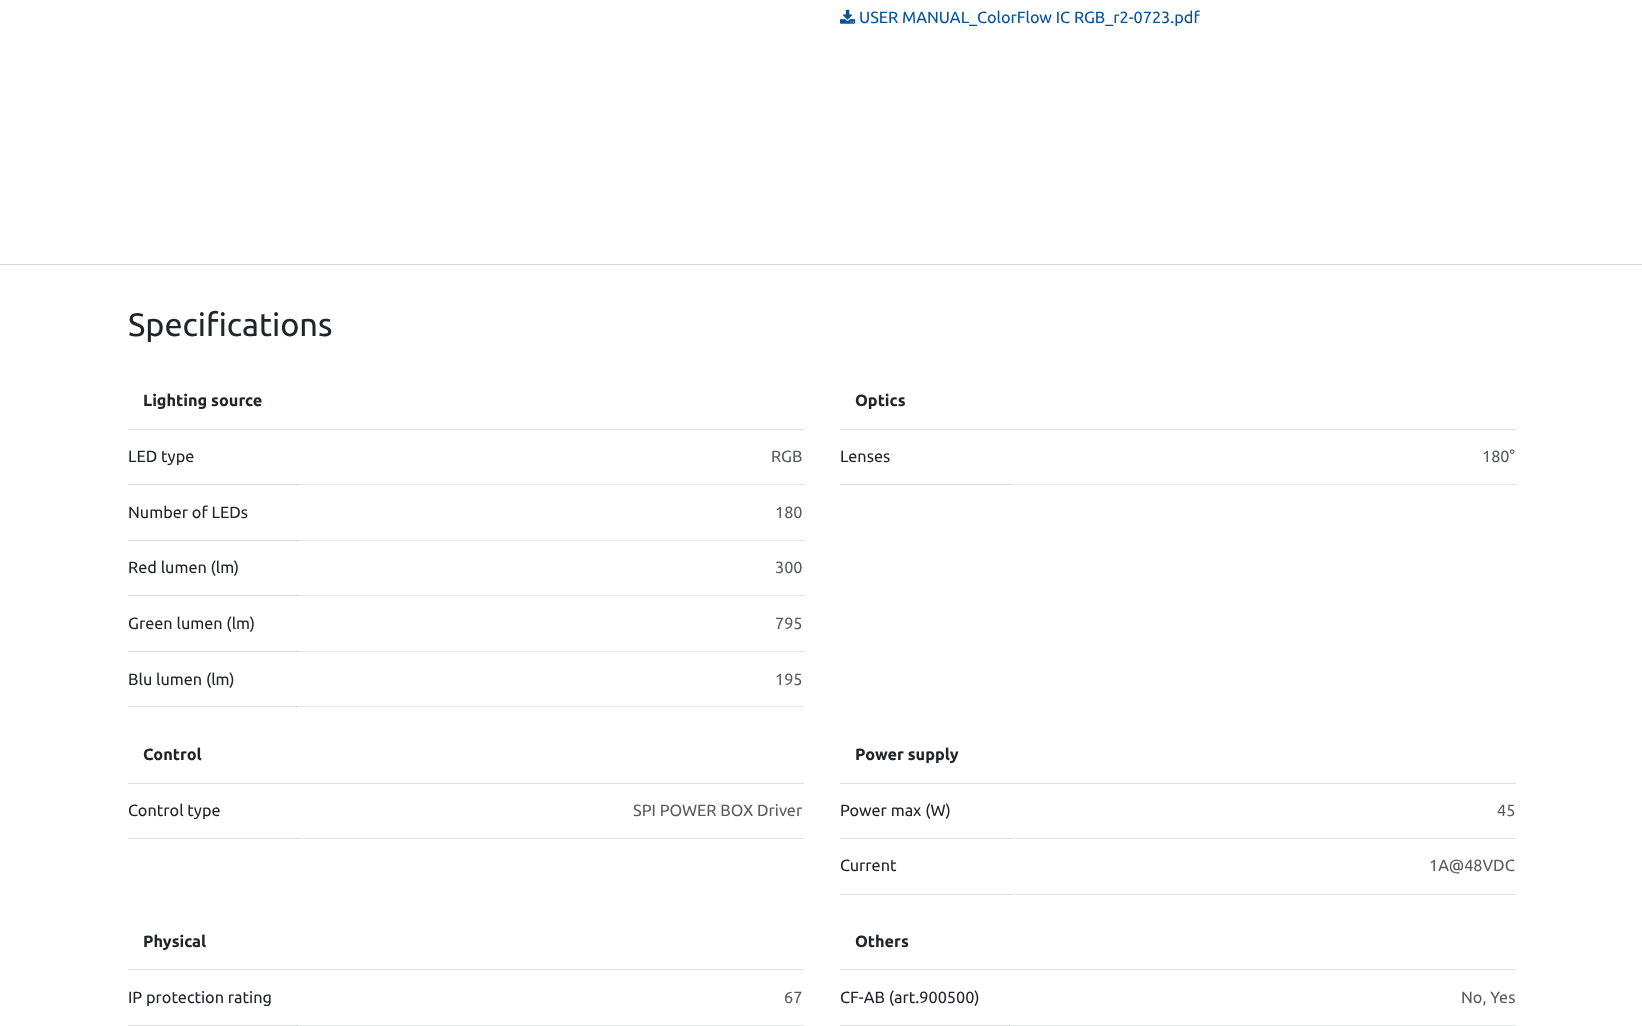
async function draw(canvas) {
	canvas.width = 1642;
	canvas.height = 1026;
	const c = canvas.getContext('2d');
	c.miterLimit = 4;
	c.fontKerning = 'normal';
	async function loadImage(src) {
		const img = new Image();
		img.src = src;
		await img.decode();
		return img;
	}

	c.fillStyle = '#fff';
	c.fillRect(0, 0, 1642, 1026);
	for (const [x, y, w, h, color] of [
		[840, 1025, 170, 1, '#dededf'],
		[128, 1025, 170, 1, '#dededf'],
		[840, 838, 170, 1, '#dededf'],
		[840, 894, 170, 1, '#dededf'],
		[128, 838, 170, 1, '#dededf'],
		[840, 484, 170, 1, '#dededf'],
		[128, 484, 170, 1, '#dededf'],
		[128, 540, 170, 1, '#dededf'],
		[128, 595, 170, 1, '#dededf'],
		[128, 651, 170, 1, '#dededf'],
		[128, 706, 170, 1, '#dededf'],
	]) {
		c.fillStyle = color;
		c.fillRect(x, y, w, h);
	}
	c.drawImage(await loadImage('img1.png'), 840, 9, 16, 15);
	c.font = '16.25px Ubuntu';
	c.fillStyle = '#085294';
	c.fillText('USER MANUAL_ColorFlow IC RGB_r2-0723.pdf', 859, 23);
	c.fillStyle = '#ced4da';
	c.fillRect(0, 264, 1642, 1);
	c.font = '32.5px Ubuntu';
	c.fillStyle = '#212529';
	c.fillText('Specifications', 128, 336);
	c.fillStyle = '#dededf';
	c.fillRect(128, 429, 676, 1);
	c.font = 'bold 16.25px Ubuntu';
	c.fillStyle = '#212529';
	c.fillText('Lighting source', 143, 406);
	c.font = '16.25px Ubuntu';
	c.fillText('LED type', 128, 462);
	c.fillStyle = '#e6e7e7';
	c.fillRect(296, 484, 508, 1);
	c.fillStyle = '#c8cacb';
	c.fillRect(296, 484, 2, 1);
	c.fillStyle = '#595c5f';
	c.fillText('RGB', 771, 462);
	c.fillStyle = '#212529';
	c.fillText('Number of LEDs', 128, 518);
	c.fillStyle = '#e6e7e7';
	c.fillRect(296, 540, 508, 1);
	c.fillStyle = '#c8cacb';
	c.fillRect(296, 540, 2, 1);
	c.fillStyle = '#595c5f';
	c.fillText('180', 775, 518);
	c.fillStyle = '#212529';
	c.fillText('Red lumen (lm)', 128, 573);
	c.fillStyle = '#e6e7e7';
	c.fillRect(296, 595, 508, 1);
	c.fillStyle = '#c8cacb';
	c.fillRect(296, 595, 2, 1);
	c.fillStyle = '#595c5f';
	c.fillText('300', 775, 573);
	c.fillStyle = '#212529';
	c.fillText('Green lumen (lm)', 128, 629);
	c.fillStyle = '#e6e7e7';
	c.fillRect(296, 651, 508, 1);
	c.fillStyle = '#c8cacb';
	c.fillRect(296, 651, 2, 1);
	c.fillStyle = '#595c5f';
	c.fillText('795', 775, 629);
	c.fillStyle = '#212529';
	c.fillText('Blu lumen (lm)', 128, 685);
	c.fillStyle = '#e6e7e7';
	c.fillRect(296, 706, 508, 1);
	c.fillStyle = '#c8cacb';
	c.fillRect(296, 706, 2, 1);
	c.fillStyle = '#595c5f';
	c.fillText('195', 775, 685);
	c.fillStyle = '#dededf';
	c.fillRect(840, 429, 676, 1);
	c.font = 'bold 16.25px Ubuntu';
	c.fillStyle = '#212529';
	c.fillText('Optics', 855, 406);
	c.font = '16.25px Ubuntu';
	c.fillText('Lenses', 840, 462);
	c.fillStyle = '#e6e7e7';
	c.fillRect(1009, 484, 507, 1);
	c.fillStyle = '#c8cacb';
	c.fillRect(1009, 484, 1, 1);
	c.fillStyle = '#595c5f';
	c.fillText('180°', 1482, 462);
	c.fillStyle = '#dededf';
	c.fillRect(128, 783, 676, 1);
	c.font = 'bold 16.25px Ubuntu';
	c.fillStyle = '#212529';
	c.fillText('Control', 143, 760);
	c.font = '16.25px Ubuntu';
	c.fillText('Control type', 128, 816);
	c.fillStyle = '#e6e7e7';
	c.fillRect(296, 838, 508, 1);
	c.fillStyle = '#c8cacb';
	c.fillRect(296, 838, 2, 1);
	c.fillStyle = '#595c5f';
	c.fillText('SPI POWER BOX Driver', 633, 816);
	c.fillStyle = '#dededf';
	c.fillRect(840, 783, 676, 1);
	c.font = 'bold 16.25px Ubuntu';
	c.fillStyle = '#212529';
	c.fillText('Power supply', 855, 760);
	c.font = '16.25px Ubuntu';
	c.fillText('Power max (W)', 840, 816);
	c.fillStyle = '#e6e7e7';
	c.fillRect(1009, 838, 507, 1);
	c.fillStyle = '#c8cacb';
	c.fillRect(1009, 838, 1, 1);
	c.fillStyle = '#595c5f';
	c.fillText('45', 1497, 816);
	c.fillStyle = '#212529';
	c.fillText('Current', 840, 871);
	c.fillStyle = '#e6e7e7';
	c.fillRect(1009, 894, 507, 1);
	c.fillStyle = '#c8cacb';
	c.fillRect(1009, 894, 1, 1);
	c.fillStyle = '#595c5f';
	c.fillText('1A@48VDC', 1429, 871);
	c.fillStyle = '#dededf';
	c.fillRect(128, 969, 676, 1);
	c.font = 'bold 16.25px Ubuntu';
	c.fillStyle = '#212529';
	c.fillText('Physical', 143, 947);
	c.font = '16.25px Ubuntu';
	c.fillText('IP protection rating', 128, 1003);
	c.fillStyle = '#e6e7e7';
	c.fillRect(296, 1025, 508, 1);
	c.fillStyle = '#c8cacb';
	c.fillRect(296, 1025, 2, 1);
	c.fillStyle = '#595c5f';
	c.fillText('67', 784, 1003);
	c.fillStyle = '#dededf';
	c.fillRect(840, 969, 676, 1);
	c.font = 'bold 16.25px Ubuntu';
	c.fillStyle = '#212529';
	c.fillText('Others', 855, 947);
	c.font = '16.25px Ubuntu';
	c.fillText('CF-AB (art.900500)', 840, 1003);
	c.fillStyle = '#e6e7e7';
	c.fillRect(1009, 1025, 507, 1);
	c.fillStyle = '#c8cacb';
	c.fillRect(1009, 1025, 1, 1);
	c.fillStyle = '#595c5f';
	c.fillText('No, Yes', 1461, 1003);
}

draw(document.querySelector('canvas'));
